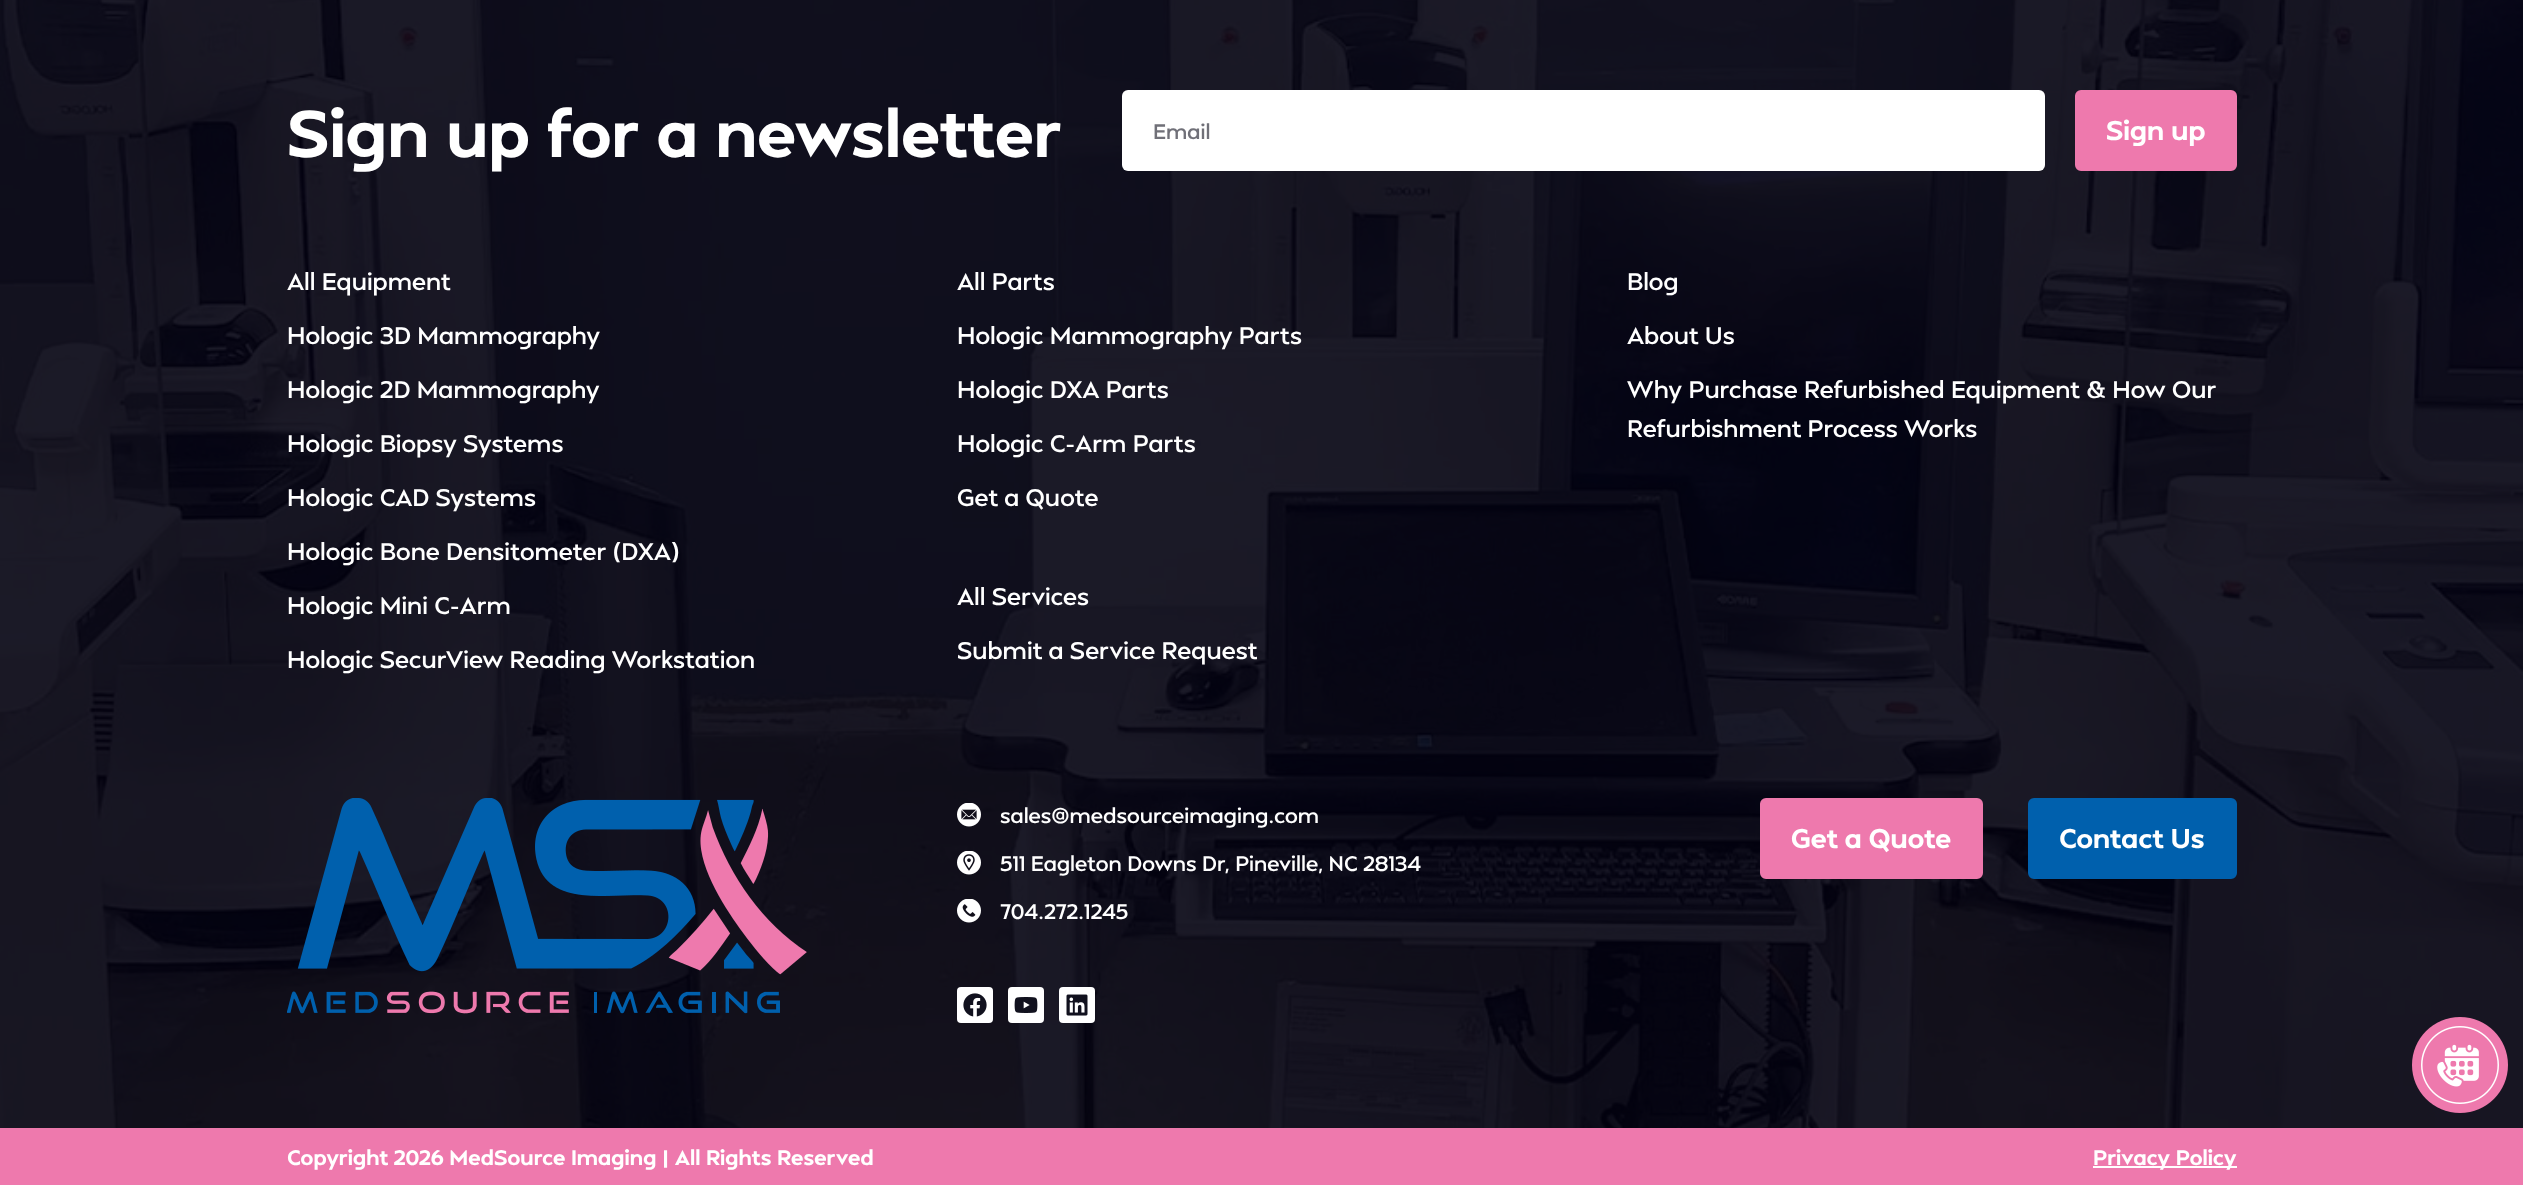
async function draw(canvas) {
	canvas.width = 2523;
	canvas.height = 1185;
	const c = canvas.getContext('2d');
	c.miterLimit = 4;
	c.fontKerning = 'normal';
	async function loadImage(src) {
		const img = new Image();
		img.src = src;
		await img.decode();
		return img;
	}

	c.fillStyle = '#fff';
	c.fillRect(0, 0, 2523, 1185);
	c.drawImage(await loadImage('img1.png'), 0, 0, 2523, 1128);
	c.font = '800 66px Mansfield';
	c.fillText('Sign up for a newsletter', 287, 157);
	c.beginPath();
	c.roundRect(1122, 90, 923, 81, 6);
	c.fill();
	c.font = '600 21px Mansfield';
	c.fillStyle = '#707078';
	c.fillText('Email', 1153, 139);
	c.fillStyle = '#ee79ad';
	c.beginPath();
	c.roundRect(2076, 91, 160, 79, 5);
	c.fill();
	c.strokeStyle = '#ee79ad';
	c.lineWidth = 2;
	c.stroke();
	c.font = '800 27px Mansfield';
	c.fillStyle = '#fff';
	c.fillText('Sign up', 2106, 140);
	c.font = '600 24px Mansfield';
	for (const [text, x, y] of [
		['All Equipment', 287, 290],
		['Hologic 3D Mammography', 287, 344],
		['Hologic 2D Mammography', 287, 398],
		['Hologic Biopsy Systems', 287, 452],
		['Hologic CAD Systems', 287, 506],
		['Hologic Bone Densitometer (DXA)', 287, 560],
		['Hologic Mini C-Arm', 287, 614],
		['Hologic SecurView Reading Workstation', 287, 668],
		['All Parts', 957, 290],
		['Hologic Mammography Parts', 957, 344],
		['Hologic DXA Parts', 957, 398],
		['Hologic C-Arm Parts', 957, 452],
		['Get a Quote', 957, 506],
		['All Services', 957, 605],
		['Submit a Service Request', 957, 659],
		['Blog', 1627, 290],
		['About Us', 1627, 344],
		['Why Purchase Refurbished Equipment & How Our', 1627, 398],
		['Refurbishment Process Works', 1627, 437],
	]) {
		c.fillText(text, x, y);
	}
	c.drawImage(await loadImage('img2.png'), 287, 798, 520, 216);
	c.drawImage(await loadImage('img3.png'), 957, 803, 24, 24);
	c.font = '600 21px Mansfield';
	c.fillText('sales@medsourceimaging.com', 1000, 823);
	c.drawImage(await loadImage('img4.png'), 957, 851, 24, 24);
	c.fillText('511 Eagleton Downs Dr, Pineville, NC 28134', 1000, 871);
	c.drawImage(await loadImage('img5.png'), 957, 899, 24, 24);
	c.fillText('704.272.1245', 1000, 919);
	c.beginPath();
	c.roundRect(957, 987, 36, 36, 4);
	c.fill();
	c.drawImage(await loadImage('img6.png'), 963, 993, 24, 24);
	c.beginPath();
	c.roundRect(1008, 987, 36, 36, 4);
	c.fill();
	c.drawImage(await loadImage('img7.png'), 1014, 997, 24, 16);
	c.beginPath();
	c.roundRect(1059, 987, 36, 36, 4);
	c.fill();
	c.drawImage(await loadImage('img8.png'), 1066, 994, 22, 22);
	c.fillStyle = '#ee79ad';
	c.beginPath();
	c.roundRect(1761, 799, 221, 79, 5);
	c.fill();
	c.stroke();
	c.font = '800 27px Mansfield';
	c.fillStyle = '#fff';
	c.fillText('Get a Quote', 1791, 848);
	c.fillStyle = '#0060ad';
	c.beginPath();
	c.roundRect(2029, 799, 207, 79, 5);
	c.fill();
	c.strokeStyle = '#0060ad';
	c.stroke();
	c.fillStyle = '#fff';
	c.fillText('Contact Us', 2059, 848);
	c.drawImage(await loadImage('img9.png'), 2412, 1017, 96, 96);
	c.fillStyle = '#ee79ad';
	c.fillRect(0, 1128, 2523, 57);
	c.font = '800 21px Mansfield';
	c.fillStyle = '#fff';
	c.fillText('Copyright 2026 MedSource Imaging | All Rights Reserved', 287, 1165);
	c.fillRect(2093, 1166, 144, 2);
	c.fillText('Privacy Policy', 2093, 1165);
}

draw(document.querySelector('canvas'));
